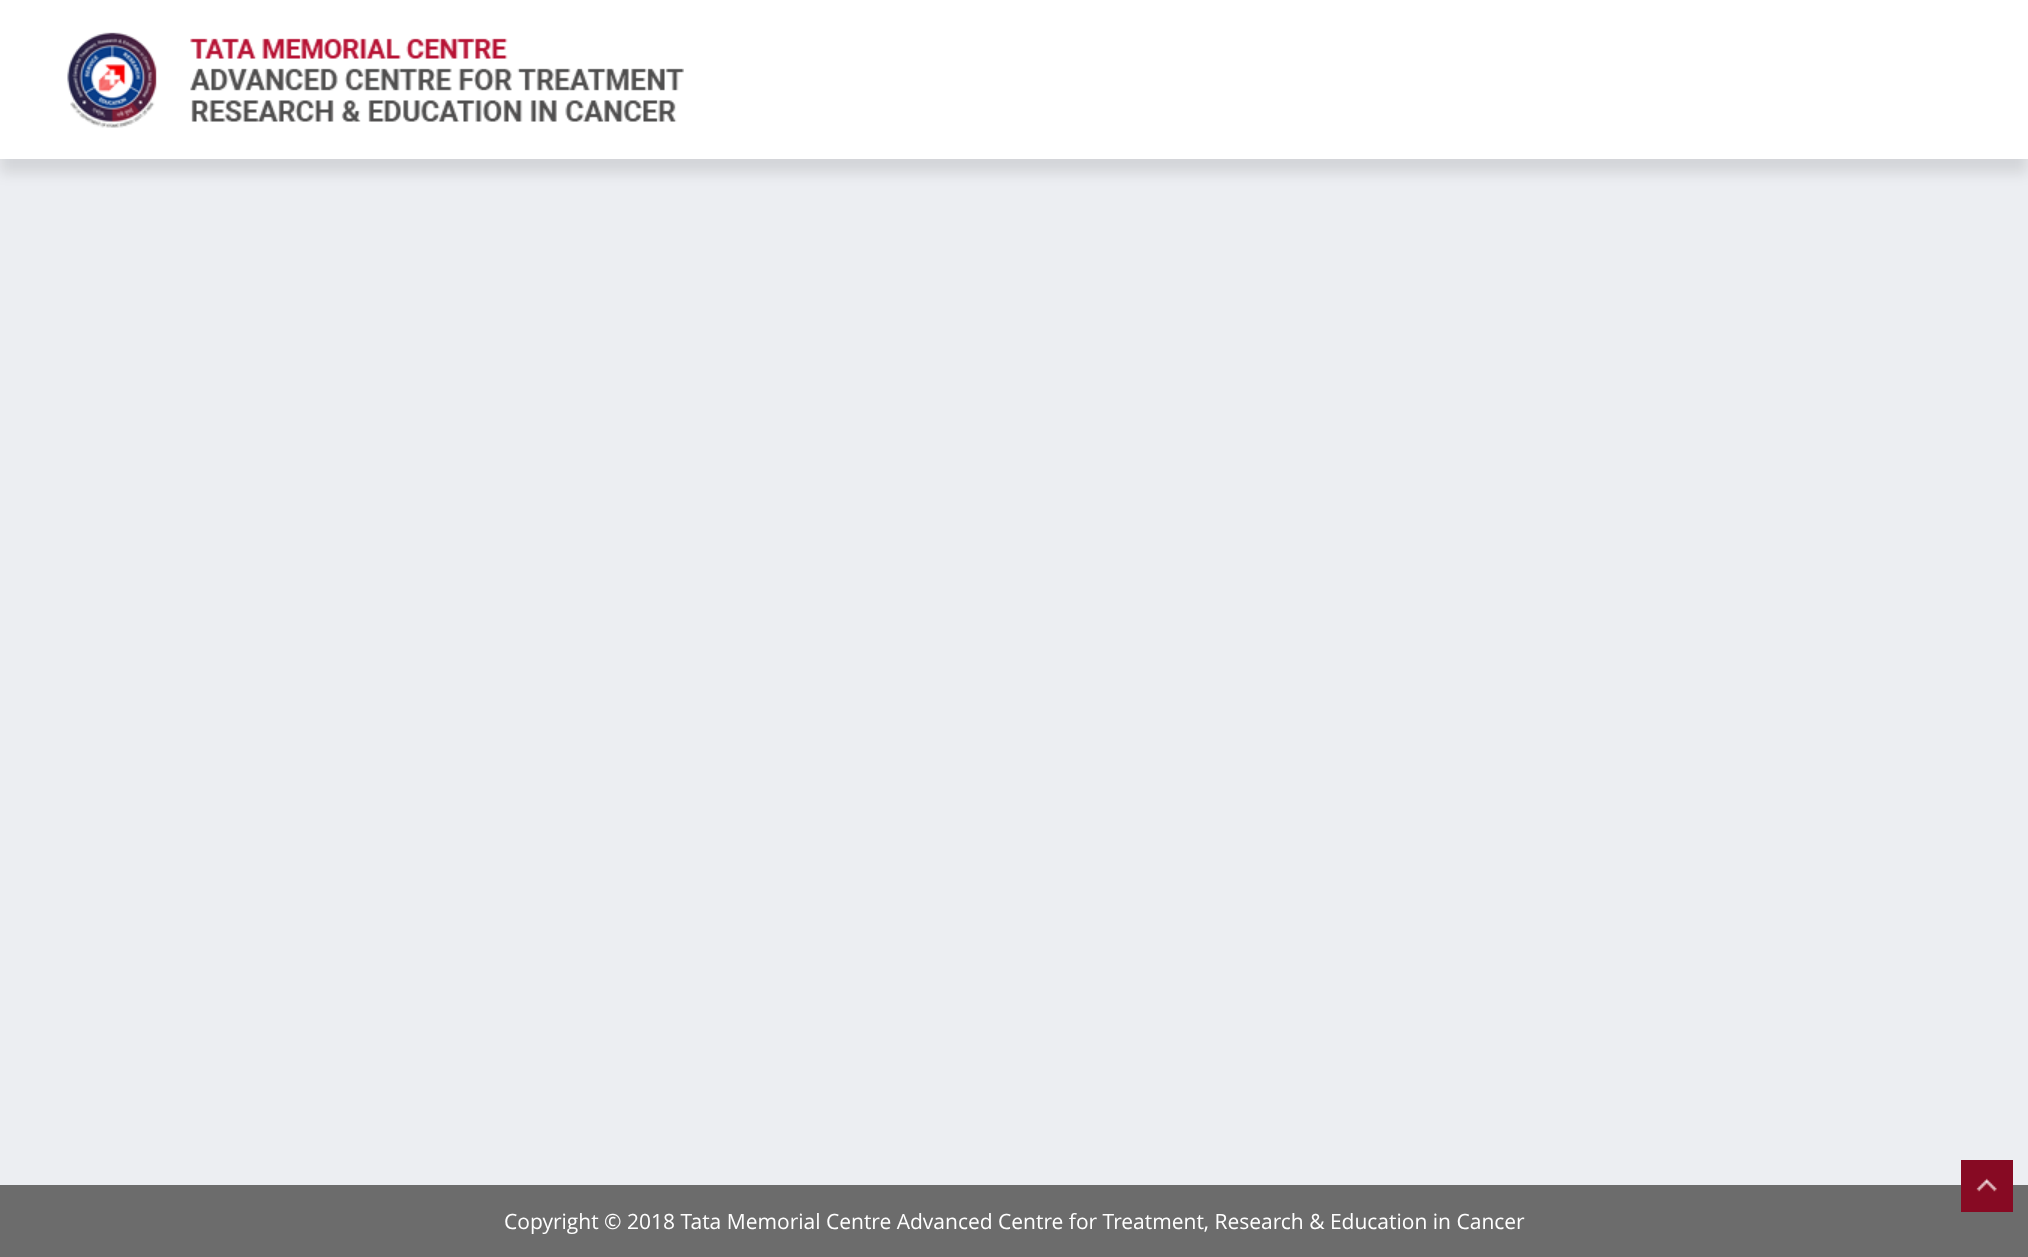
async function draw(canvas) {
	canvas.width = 2028;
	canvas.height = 1257;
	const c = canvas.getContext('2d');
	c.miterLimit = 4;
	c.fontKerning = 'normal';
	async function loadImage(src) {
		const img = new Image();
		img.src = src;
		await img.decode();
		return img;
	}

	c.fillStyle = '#eceef2';
	c.fillRect(0, 0, 2028, 1257);
	c.fillStyle = '#6c6c6c';
	c.fillRect(0, 1185, 2028, 72);
	c.fillStyle = '#870a23';
	c.fillRect(1961, 1160, 52, 52);
	c.drawImage(await loadImage('img1.png'), 1976, 1178, 21, 14);
	c.fillStyle = '#0000001a';
	c.filter = 'blur(7px)';
	c.beginPath();
	c.rect(0, 14, 2028, 159);
	c.fill();
	c.filter = 'none';
	c.fillStyle = '#fff';
	c.fillRect(0, 0, 2028, 159);
	c.drawImage(await loadImage('img2.png'), 67, 32, 617, 96);
	c.font = '21px Open Sans';
	c.fillText('Copyright © 2018 Tata Memorial Centre Advanced Centre for Treatment, Research & Education in Cancer', 504, 1229);
}

draw(document.querySelector('canvas'));
